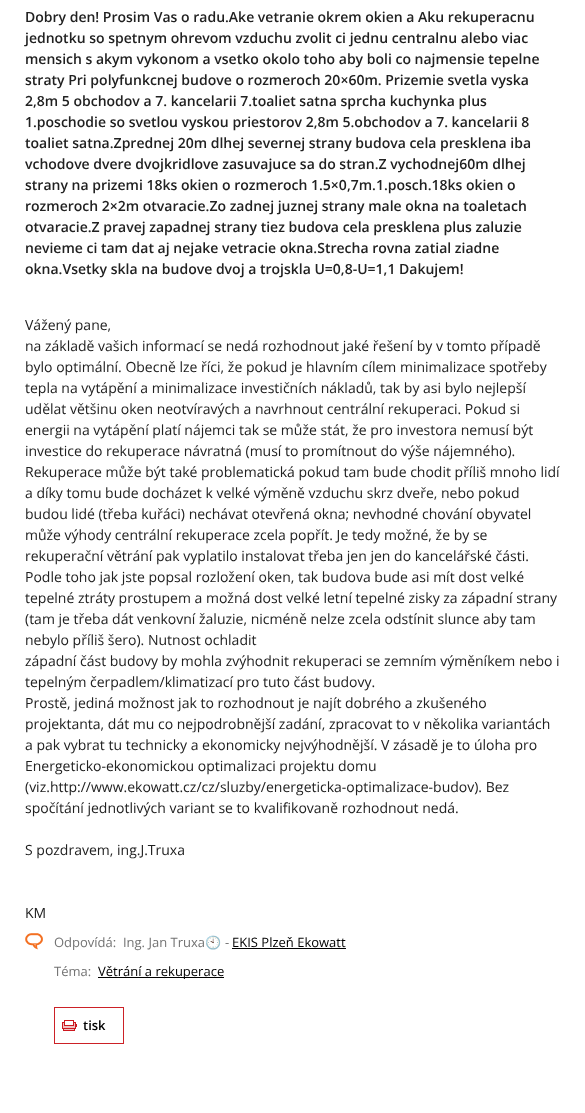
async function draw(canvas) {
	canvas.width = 585;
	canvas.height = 1113;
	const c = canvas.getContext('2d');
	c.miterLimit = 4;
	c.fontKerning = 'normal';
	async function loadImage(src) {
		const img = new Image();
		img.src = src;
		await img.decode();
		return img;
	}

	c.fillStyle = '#fff';
	c.fillRect(0, 0, 585, 1113);
	c.font = '600 14px Open Sans';
	c.fillStyle = '#212121';
	for (const [text, x, y] of [
		['Dobry den! Prosim Vas o radu.Ake vetranie okrem okien a Aku rekuperacnu', 25, 22],
		['jednotku so spetnym ohrevom vzduchu zvolit ci jednu centralnu alebo viac', 25, 43],
		['mensich s akym vykonom a vsetko okolo toho aby boli co najmensie tepelne', 25, 64],
		['straty Pri polyfunkcnej budove o rozmeroch 20×60m. Prizemie svetla vyska', 25, 85],
		['2,8m 5 obchodov a 7. kancelarii 7.toaliet satna sprcha kuchynka plus', 25, 106],
		['1.poschodie so svetlou vyskou priestorov 2,8m 5.obchodov a 7. kancelarii 8', 25, 127],
		['toaliet satna.Zprednej 20m dlhej severnej strany budova cela presklena iba', 25, 148],
		['vchodove dvere dvojkridlove zasuvajuce sa do stran.Z vychodnej60m dlhej', 25, 169],
		['strany na prizemi 18ks okien o rozmeroch 1.5×0,7m.1.posch.18ks okien o', 25, 190],
		['rozmeroch 2×2m otvaracie.Zo zadnej juznej strany male okna na toaletach', 25, 211],
		['otvaracie.Z pravej zapadnej strany tiez budova cela presklena plus zaluzie', 25, 232],
		['nevieme ci tam dat aj nejake vetracie okna.Strecha rovna zatial ziadne', 25, 253],
		['okna.Vsetky skla na budove dvoj a trojskla U=0,8-U=1,1 Dakujem!', 25, 274],
	]) {
		c.fillText(text, x, y);
	}
	c.font = '14px Open Sans';
	for (const [text, x, y] of [
		['Vážený pane,', 25, 330],
		['na základě vašich informací se nedá rozhodnout jaké řešení by v tomto případě', 25, 351],
		['bylo optimální. Obecně lze říci, že pokud je hlavním cílem minimalizace spotřeby', 25, 372],
		['tepla na vytápění a minimalizace investičních nákladů, tak by asi bylo nejlepší', 25, 393],
		['udělat většinu oken neotvíravých a navrhnout centrální rekuperaci. Pokud si', 25, 414],
		['energii na vytápění platí nájemci tak se může stát, že pro investora nemusí být', 25, 435],
		['investice do rekuperace návratná (musí to promítnout do výše nájemného).', 25, 456],
		['Rekuperace může být také problematická pokud tam bude chodit příliš mnoho lidí', 25, 477],
		['a díky tomu bude docházet k velké výměně vzduchu skrz dveře, nebo pokud', 25, 498],
		['budou lidé (třeba kuřáci) nechávat otevřená okna; nevhodné chování obyvatel', 25, 519],
		['může výhody centrální rekuperace zcela popřít. Je tedy možné, že by se', 25, 540],
		['rekuperační větrání pak vyplatilo instalovat třeba jen jen do kancelářské části.', 25, 561],
		['Podle toho jak jste popsal rozložení oken, tak budova bude asi mít dost velké', 25, 582],
		['tepelné ztráty prostupem a možná dost velké letní tepelné zisky za západní strany', 25, 603],
		['(tam je třeba dát venkovní žaluzie, nicméně nelze zcela odstínit slunce aby tam', 25, 624],
		['nebylo příliš šero). Nutnost ochladit', 25, 645],
		['západní část budovy by mohla zvýhodnit rekuperaci se zemním výměníkem nebo i', 25, 666],
		['tepelným čerpadlem/klimatizací pro tuto část budovy.', 25, 687],
		['Prostě, jediná možnost jak to rozhodnout je najít dobrého a zkušeného', 25, 708],
		['projektanta, dát mu co nejpodrobnější zadání, zpracovat to v několika variantách', 25, 729],
		['a pak vybrat tu technicky a ekonomicky nejvýhodnější. V zásadě je to úloha pro', 25, 750],
		['Energeticko-ekonomickou optimalizaci projektu domu', 25, 771],
		['(viz.http://www.ekowatt.cz/cz/sluzby/energeticka-optimalizace-budov). Bez', 25, 792],
		['spočítání jednotlivých variant se to kvalifikovaně rozhodnout nedá.', 25, 813],
		['S pozdravem, ing.J.Truxa', 25, 855],
		['KM', 25, 918],
	]) {
		c.fillText(text, x, y);
	}
	c.drawImage(await loadImage('img1.png'), 25, 933, 18, 17);
	c.font = '13px Open Sans';
	c.fillStyle = '#737373';
	c.fillText('Odpovídá:  Ing. Jan Truxa', 54, 947);
	c.font = '13px Noto Color Emoji';
	c.fillText('🕙', 205, 947);
	c.font = '13px Open Sans';
	c.fillText('-', 225, 947);
	c.fillStyle = '#000';
	c.fillText('EKIS Plzeň Ekowatt', 232, 947);
	c.fillRect(232, 948, 114, 1);
	c.fillStyle = '#737373';
	c.fillText('Téma:', 54, 976);
	c.fillStyle = '#000';
	c.fillRect(98, 977, 126, 1);
	c.fillText('Větrání a rekuperace', 98, 976);
	c.drawImage(await loadImage('img2.png'), 62, 1020, 15, 11);
	c.strokeStyle = '#cc2127';
	c.strokeRect(54.5, 1007.5, 69, 36);
	c.font = '600 13px Open Sans';
	c.fillText('tisk', 83, 1030);
}

draw(document.querySelector('canvas'));
